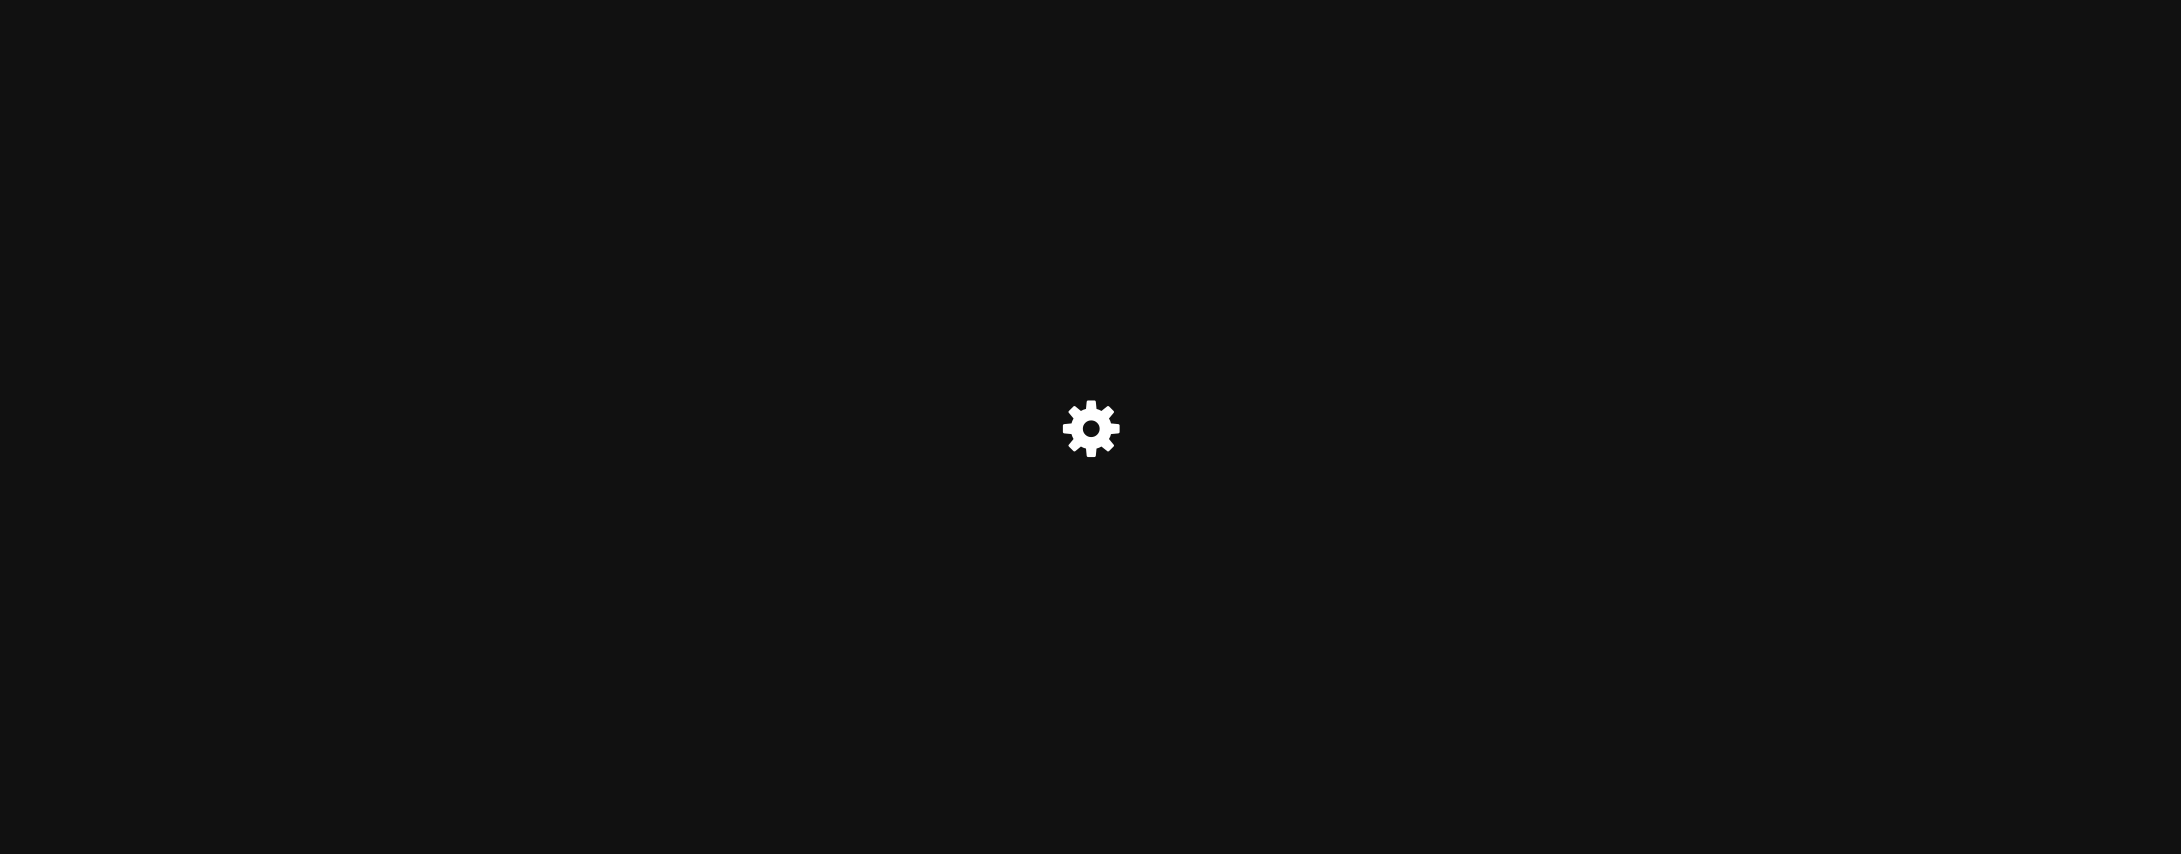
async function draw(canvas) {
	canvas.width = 2181;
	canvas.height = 854;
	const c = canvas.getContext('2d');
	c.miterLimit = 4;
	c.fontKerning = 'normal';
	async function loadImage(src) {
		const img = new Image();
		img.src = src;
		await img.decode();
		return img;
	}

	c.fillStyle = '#111';
	c.fillRect(0, 0, 2181, 854);
	c.drawImage(await loadImage('img1.png'), 1062, 400, 58, 58);
}

draw(document.querySelector('canvas'));
